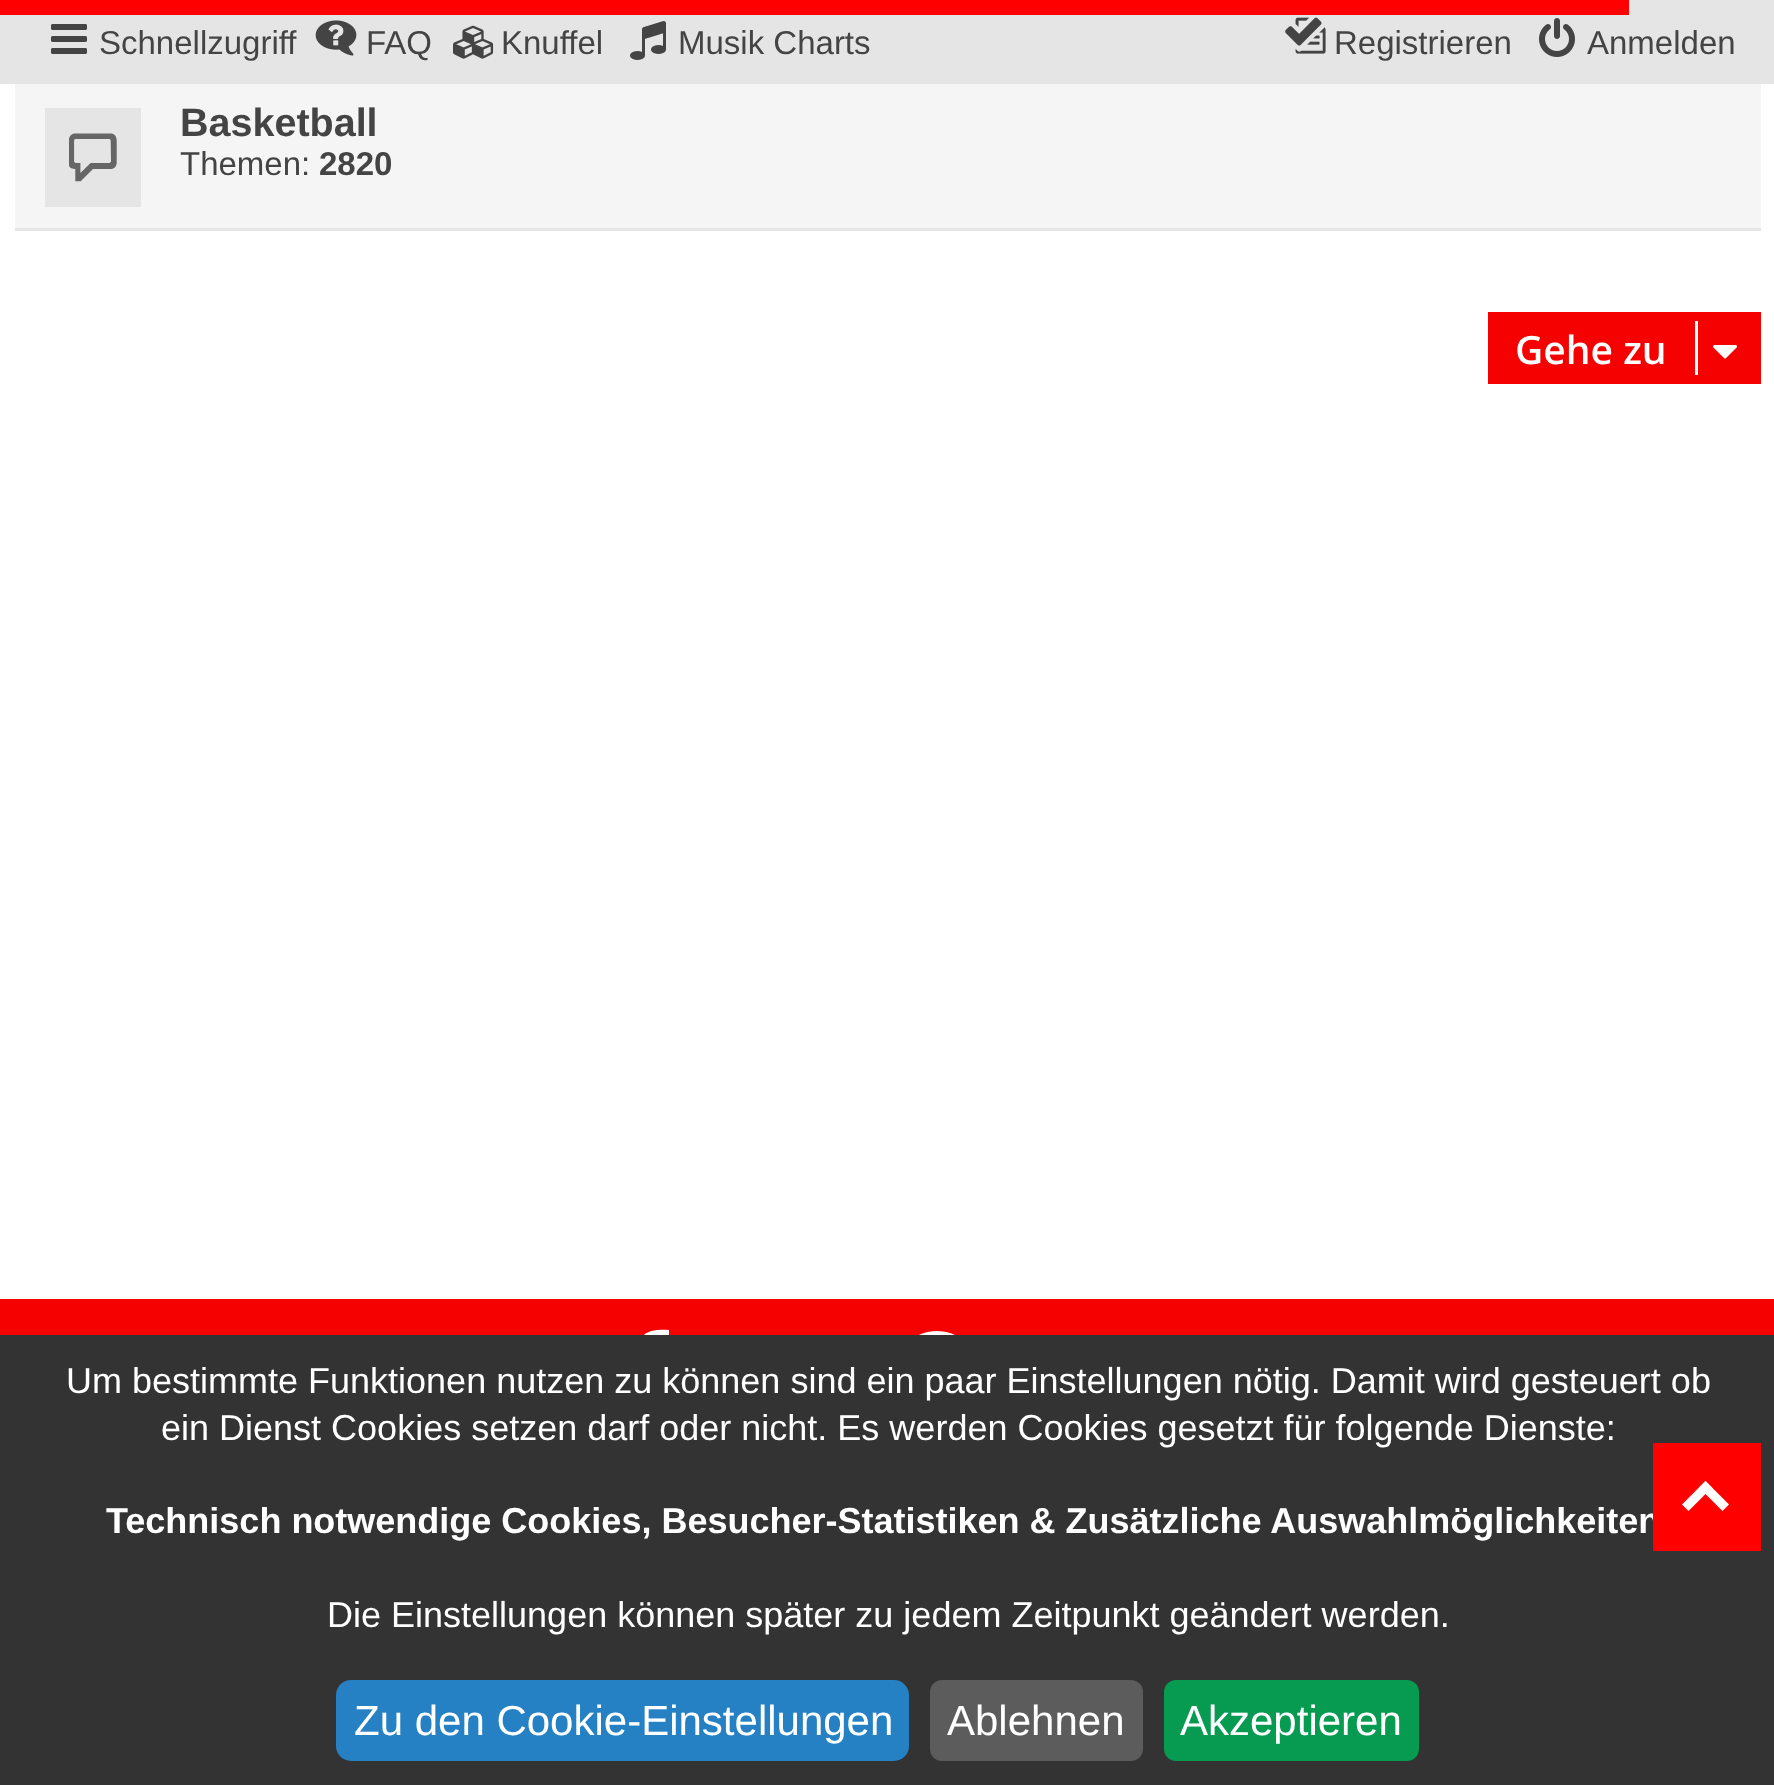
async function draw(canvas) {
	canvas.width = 1774;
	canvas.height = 1785;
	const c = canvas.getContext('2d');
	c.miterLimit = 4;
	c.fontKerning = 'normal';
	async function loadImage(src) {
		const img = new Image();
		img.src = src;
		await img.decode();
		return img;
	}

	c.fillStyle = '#fff';
	c.fillRect(0, 0, 1774, 1785);
	c.fillStyle = '#e5e5e5';
	c.fillRect(0, 0, 1774, 84);
	c.fillStyle = '#f00';
	c.fillRect(0, 0, 1629, 15);
	c.drawImage(await loadImage('img1.png'), 51, 24, 36, 30);
	c.font = '33px Liberation Sans';
	c.fillStyle = '#444';
	c.fillText('Schnellzugriff', 99, 54);
	c.drawImage(await loadImage('img2.png'), 315, 20, 42, 36);
	c.fillText('FAQ', 366, 54);
	c.drawImage(await loadImage('img3.png'), 453, 25, 41, 34);
	c.fillText('Knuffel', 501, 54);
	c.drawImage(await loadImage('img4.png'), 630, 21, 36, 39);
	c.fillText('Musik Charts', 678, 54);
	c.drawImage(await loadImage('img5.png'), 1285, 17, 41, 37);
	c.fillText('Registrieren', 1334, 54);
	c.drawImage(await loadImage('img6.png'), 1539, 18, 36, 39);
	c.fillText('Anmelden', 1587, 54);
	for (const [x, y, w, h, color] of [
		[15, 84, 1746, 144, '#f5f5f5'],
		[15, 228, 1746, 3, '#e5e5e5'],
		[45, 108, 96, 99, '#e5e5e5'],
	]) {
		c.fillStyle = color;
		c.fillRect(x, y, w, h);
	}
	c.drawImage(await loadImage('img7.png'), 69, 133, 48, 49);
	c.font = 'bold 39.5px Liberation Sans';
	c.fillStyle = '#444';
	c.fillText('Basketball', 180, 136);
	c.font = '33px Liberation Sans';
	c.fillText('Themen:', 180, 175);
	c.font = 'bold 33px Liberation Sans';
	c.fillText('2820', 319, 175);
	c.fillStyle = '#f50101';
	c.fillRect(1488, 312, 273, 72);
	c.font = '600 39px Open Sans';
	c.fillStyle = '#fff';
	c.fillText('Gehe zu', 1515, 364);
	c.fillRect(1695, 321, 3, 54);
	c.drawImage(await loadImage('img8.png'), 1713, 345, 24, 14);
	c.fillStyle = '#f50101';
	c.fillRect(0, 1299, 1774, 36);
	c.fillStyle = '#fff';
	c.beginPath();
	c.moveTo(669, 1330);
	c.lineTo(669, 1344);
	c.bezierCurveTo(652, 1344, 654, 1344, 654, 1360);
	c.lineTo(669, 1360);
	c.lineTo(667, 1375);
	c.lineTo(654, 1375);
	c.lineTo(654, 1413);
	c.lineTo(639, 1413);
	c.lineTo(639, 1375);
	c.lineTo(626, 1375);
	c.lineTo(626, 1360);
	c.lineTo(639, 1360);
	c.lineTo(639, 1345);
	c.bezierCurveTo(641, 1330, 656, 1329, 669, 1330);
	c.closePath();
	c.fill();
	c.drawImage(await loadImage('img9.png'), 919, 1331, 36, 4);
	c.fillStyle = '#333';
	c.fillRect(0, 1335, 1774, 450);
	c.font = '36px Liberation Sans';
	c.fillStyle = '#fff';
	c.fillText('Um bestimmte Funktionen nutzen zu können sind ein paar Einstellungen nötig. Damit wird gesteuert ob', 66, 1393);
	c.fillText('ein Dienst Cookies setzen darf oder nicht. Es werden Cookies gesetzt für folgende Dienste:', 161, 1440);
	c.font = 'bold 36px Liberation Sans';
	c.fillText('Technisch notwendige Cookies, Besucher-Statistiken & Zusätzliche Auswahlmöglichkeiten', 106, 1533);
	c.font = '36px Liberation Sans';
	c.fillText('Die Einstellungen können später zu jedem Zeitpunkt geändert werden.', 327, 1627);
	c.fillStyle = '#2581c4';
	c.beginPath();
	c.roundRect(336, 1680, 573, 81, 15);
	c.fill();
	c.font = '42px Liberation Sans';
	c.fillStyle = '#fff';
	c.fillText('Zu den Cookie-Einstellungen', 354, 1735);
	c.fillStyle = '#5c5c5c';
	c.beginPath();
	c.roundRect(930, 1680, 213, 81, 12);
	c.fill();
	c.fillStyle = '#fff';
	c.fillText('Ablehnen', 947, 1735);
	c.fillStyle = '#079a51';
	c.beginPath();
	c.roundRect(1164, 1680, 255, 81, 12);
	c.fill();
	c.fillStyle = '#fff';
	c.fillText('Akzeptieren', 1180, 1735);
	c.fillStyle = '#f00';
	c.fillRect(1653, 1443, 108, 108);
	c.fillStyle = '#fff';
	c.beginPath();
	c.moveTo(1712, 1487.5);
	c.lineTo(1688.5, 1511);
	c.lineTo(1682, 1504.5);
	c.lineTo(1705.5, 1481);
	c.closePath();
	c.fill();
	c.beginPath();
	c.moveTo(1729, 1504.5);
	c.lineTo(1722.5, 1511);
	c.lineTo(1699, 1487.5);
	c.lineTo(1705.5, 1481);
	c.closePath();
	c.fill();
}

draw(document.querySelector('canvas'));
